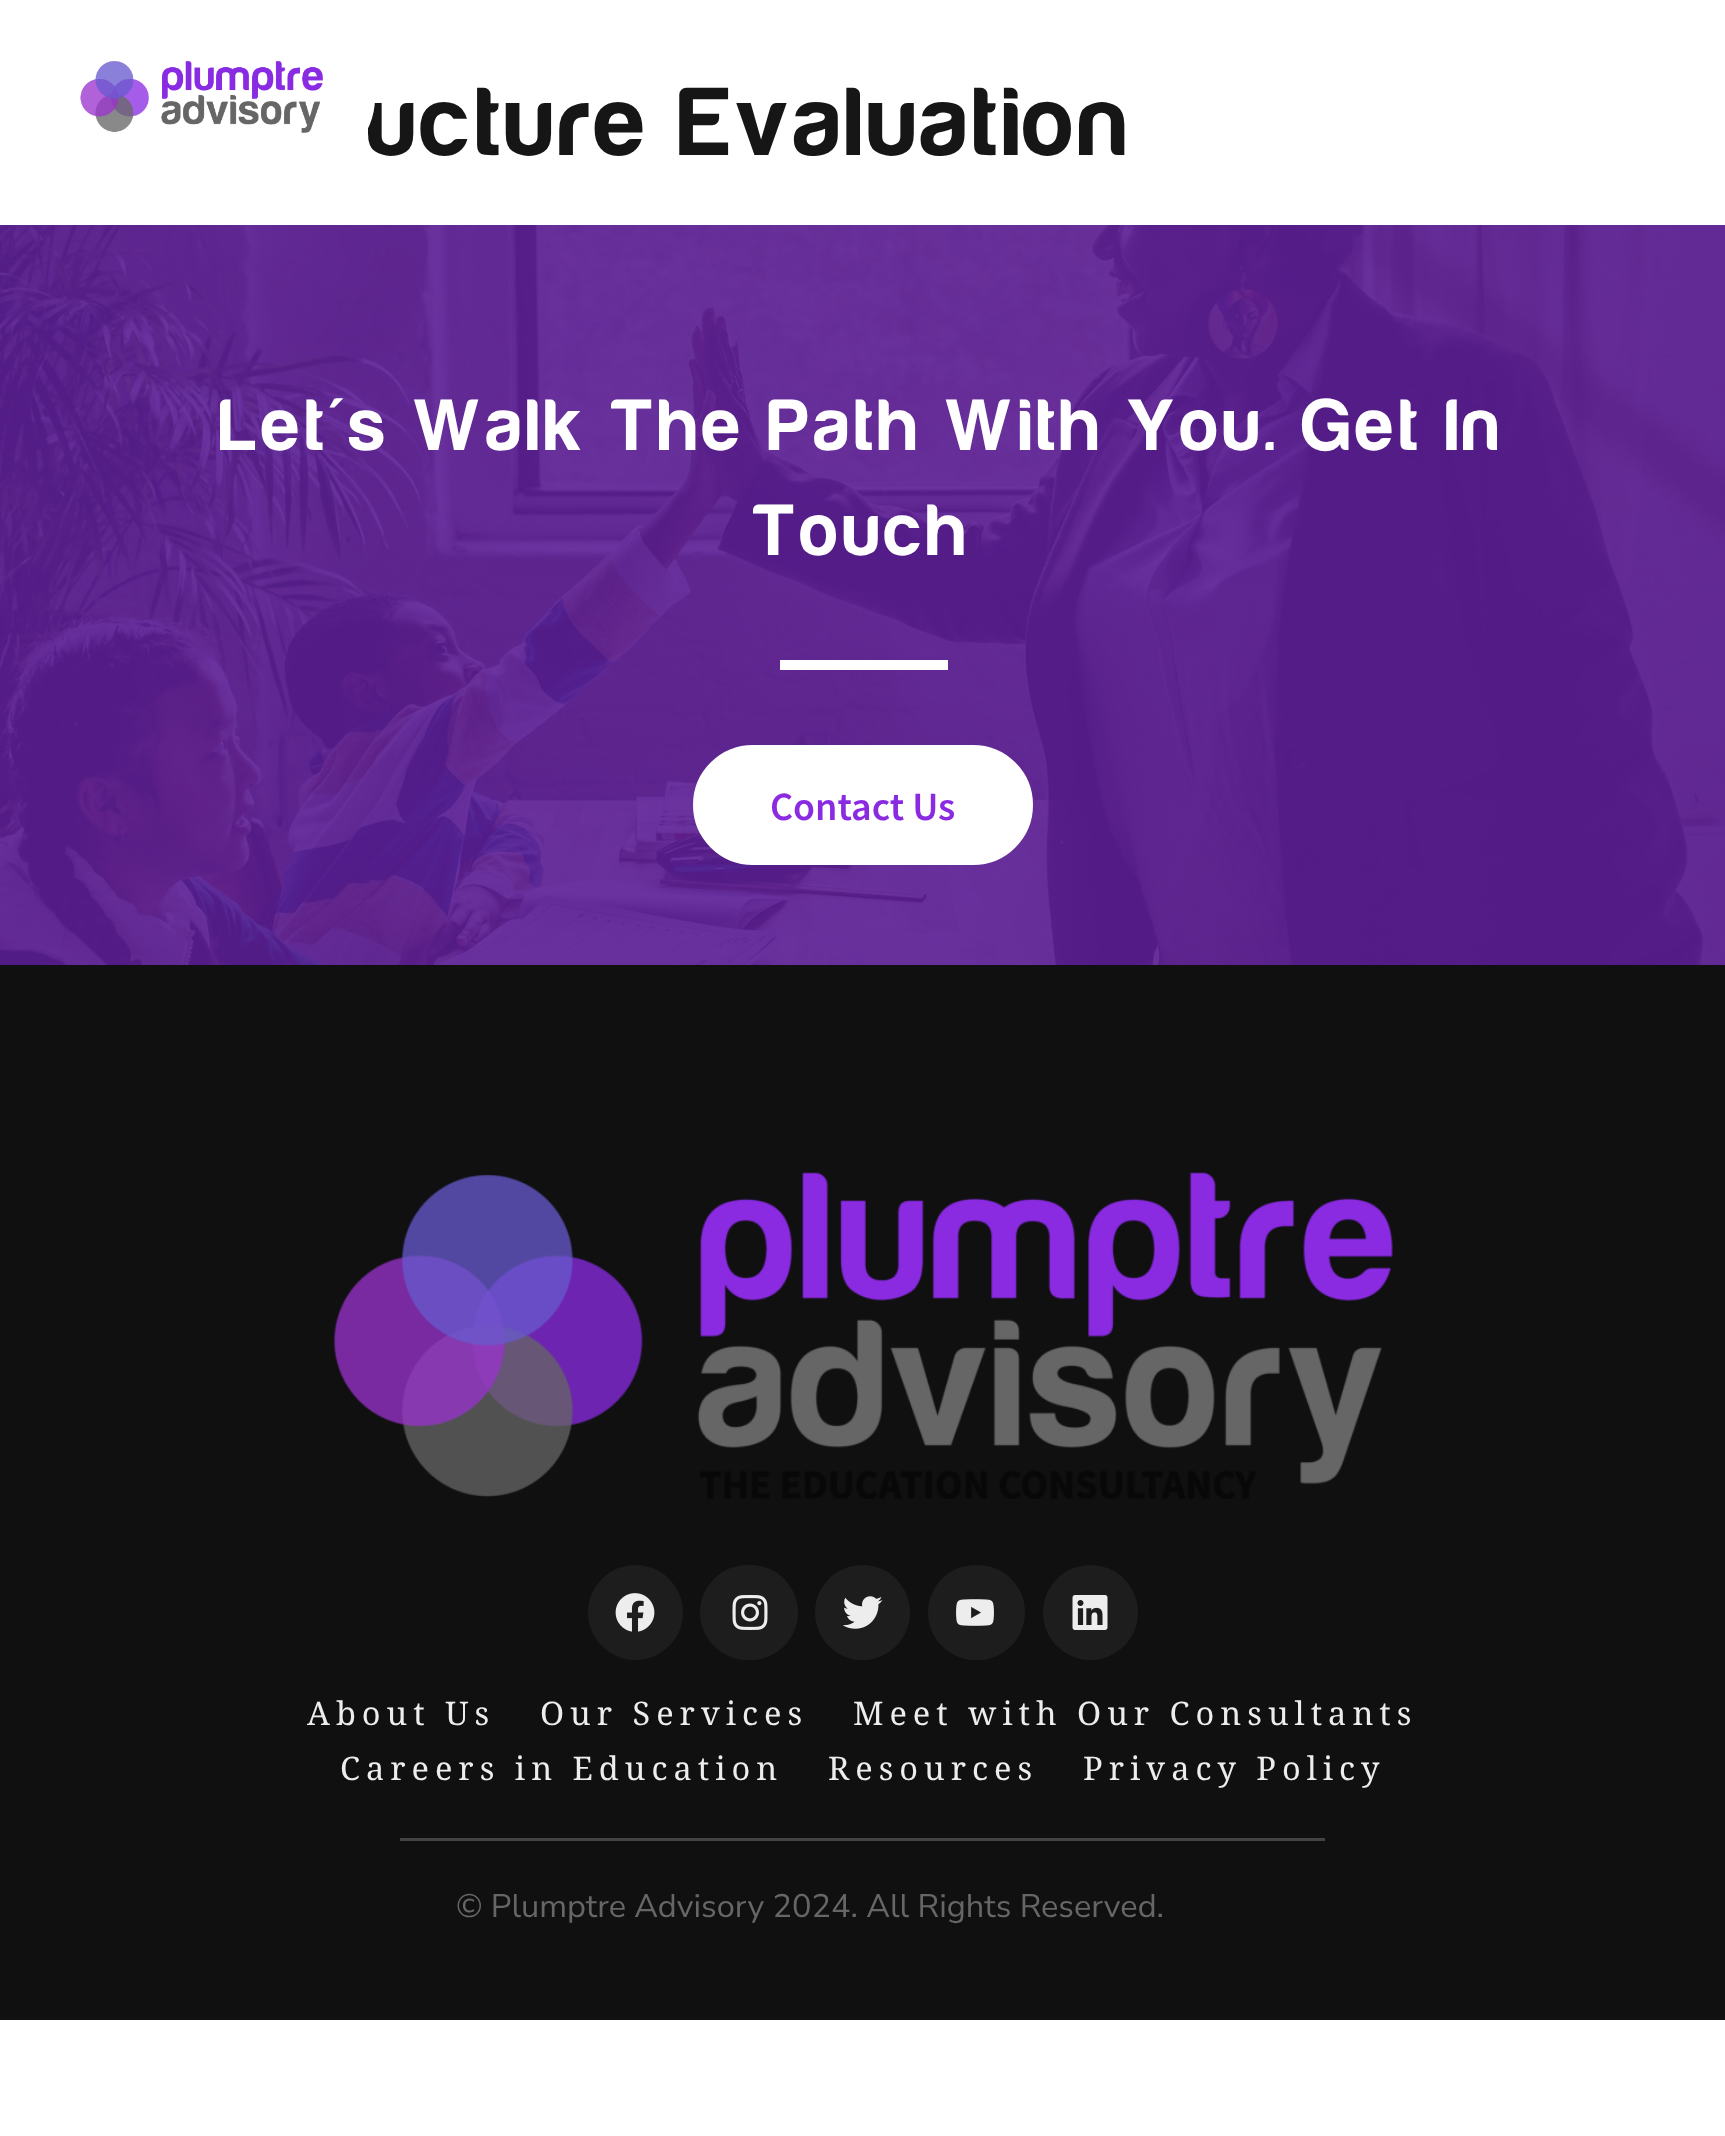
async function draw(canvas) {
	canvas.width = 1725;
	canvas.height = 2136;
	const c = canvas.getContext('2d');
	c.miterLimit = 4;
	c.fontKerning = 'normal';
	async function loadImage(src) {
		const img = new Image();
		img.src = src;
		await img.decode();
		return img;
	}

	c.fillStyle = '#fff';
	c.fillRect(0, 0, 1725, 2136);
	c.letterSpacing = '6px';
	c.font = 'bold 100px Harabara';
	c.fillStyle = '#171616';
	c.fillText('ucture Evaluation', 368, 155);
	c.fillStyle = '#fff';
	c.beginPath();
	c.roundRect(25, 28, 350, 140, 70);
	c.fill();
	c.drawImage(await loadImage('img1.png'), 80, 61, 243, 72);
	c.fillStyle = '#5c1e95';
	c.fillRect(0, 225, 1725, 740);
	c.drawImage(await loadImage('img2.png'), 0, 225, 1725, 740);
	c.font = 'bold 75px Harabara';
	c.fillStyle = '#fff';
	c.fillText('Let\'s Walk The Path With You. Get In', 220, 450);
	c.fillText('Touch', 753, 555);
	c.fillRect(780, 660, 168, 10);
	c.beginPath();
	c.roundRect(694.5, 746.5, 337, 117, 58.5);
	c.fill();
	c.strokeStyle = '#fff';
	c.lineWidth = 3;
	c.stroke();
	c.letterSpacing = '0px';
	c.font = '600 40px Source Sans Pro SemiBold';
	c.fillStyle = '#8a2be2';
	c.fillText('Contact Us', 770, 820);
	c.fillStyle = '#101011';
	c.fillRect(0, 965, 1725, 1055);
	c.drawImage(await loadImage('img3.png'), 333, 1172, 1060, 327);
	c.fillStyle = '#1d1d1d';
	c.beginPath();
	c.arc(635.5, 1612.5, 47.5, 0, 2 * Math.PI);
	c.fill();
	c.drawImage(await loadImage('img4.png'), 615, 1593, 40, 39);
	c.beginPath();
	c.roundRect(700, 1565, 98, 95, 47.5);
	c.fill();
	c.drawImage(await loadImage('img5.png'), 732, 1595, 36, 35);
	c.beginPath();
	c.arc(862.5, 1612.5, 47.5, 0, 2 * Math.PI);
	c.fill();
	c.drawImage(await loadImage('img6.png'), 843, 1596, 40, 33);
	c.beginPath();
	c.roundRect(928, 1565, 97, 95, 47.5);
	c.fill();
	c.drawImage(await loadImage('img7.png'), 956, 1599, 38, 27);
	c.beginPath();
	c.arc(1090.5, 1612.5, 47.5, 0, 2 * Math.PI);
	c.fill();
	c.drawImage(await loadImage('img8.png'), 1072, 1595, 36, 35);
	c.letterSpacing = '6px';
	c.font = '32.5px Noto Serif';
	c.fillStyle = '#ededed';
	for (const [text, x, y] of [
		['About Us', 307, 1725],
		['Our Services', 540, 1725],
		['Meet with Our Consultants', 853, 1725],
		['Careers in Education', 340, 1780],
		['Resources', 828, 1780],
		['Privacy Policy', 1083, 1780],
	]) {
		c.fillText(text, x, y);
	}
	c.fillStyle = '#434343';
	c.fillRect(400, 1838, 925, 3);
	c.letterSpacing = '0px';
	c.font = '32.5px Nunito Sans';
	c.fillStyle = '#666';
	c.fillText('© Plumptre Advisory 2024. All Rights Reserved.', 456, 1917);
}

draw(document.querySelector('canvas'));
